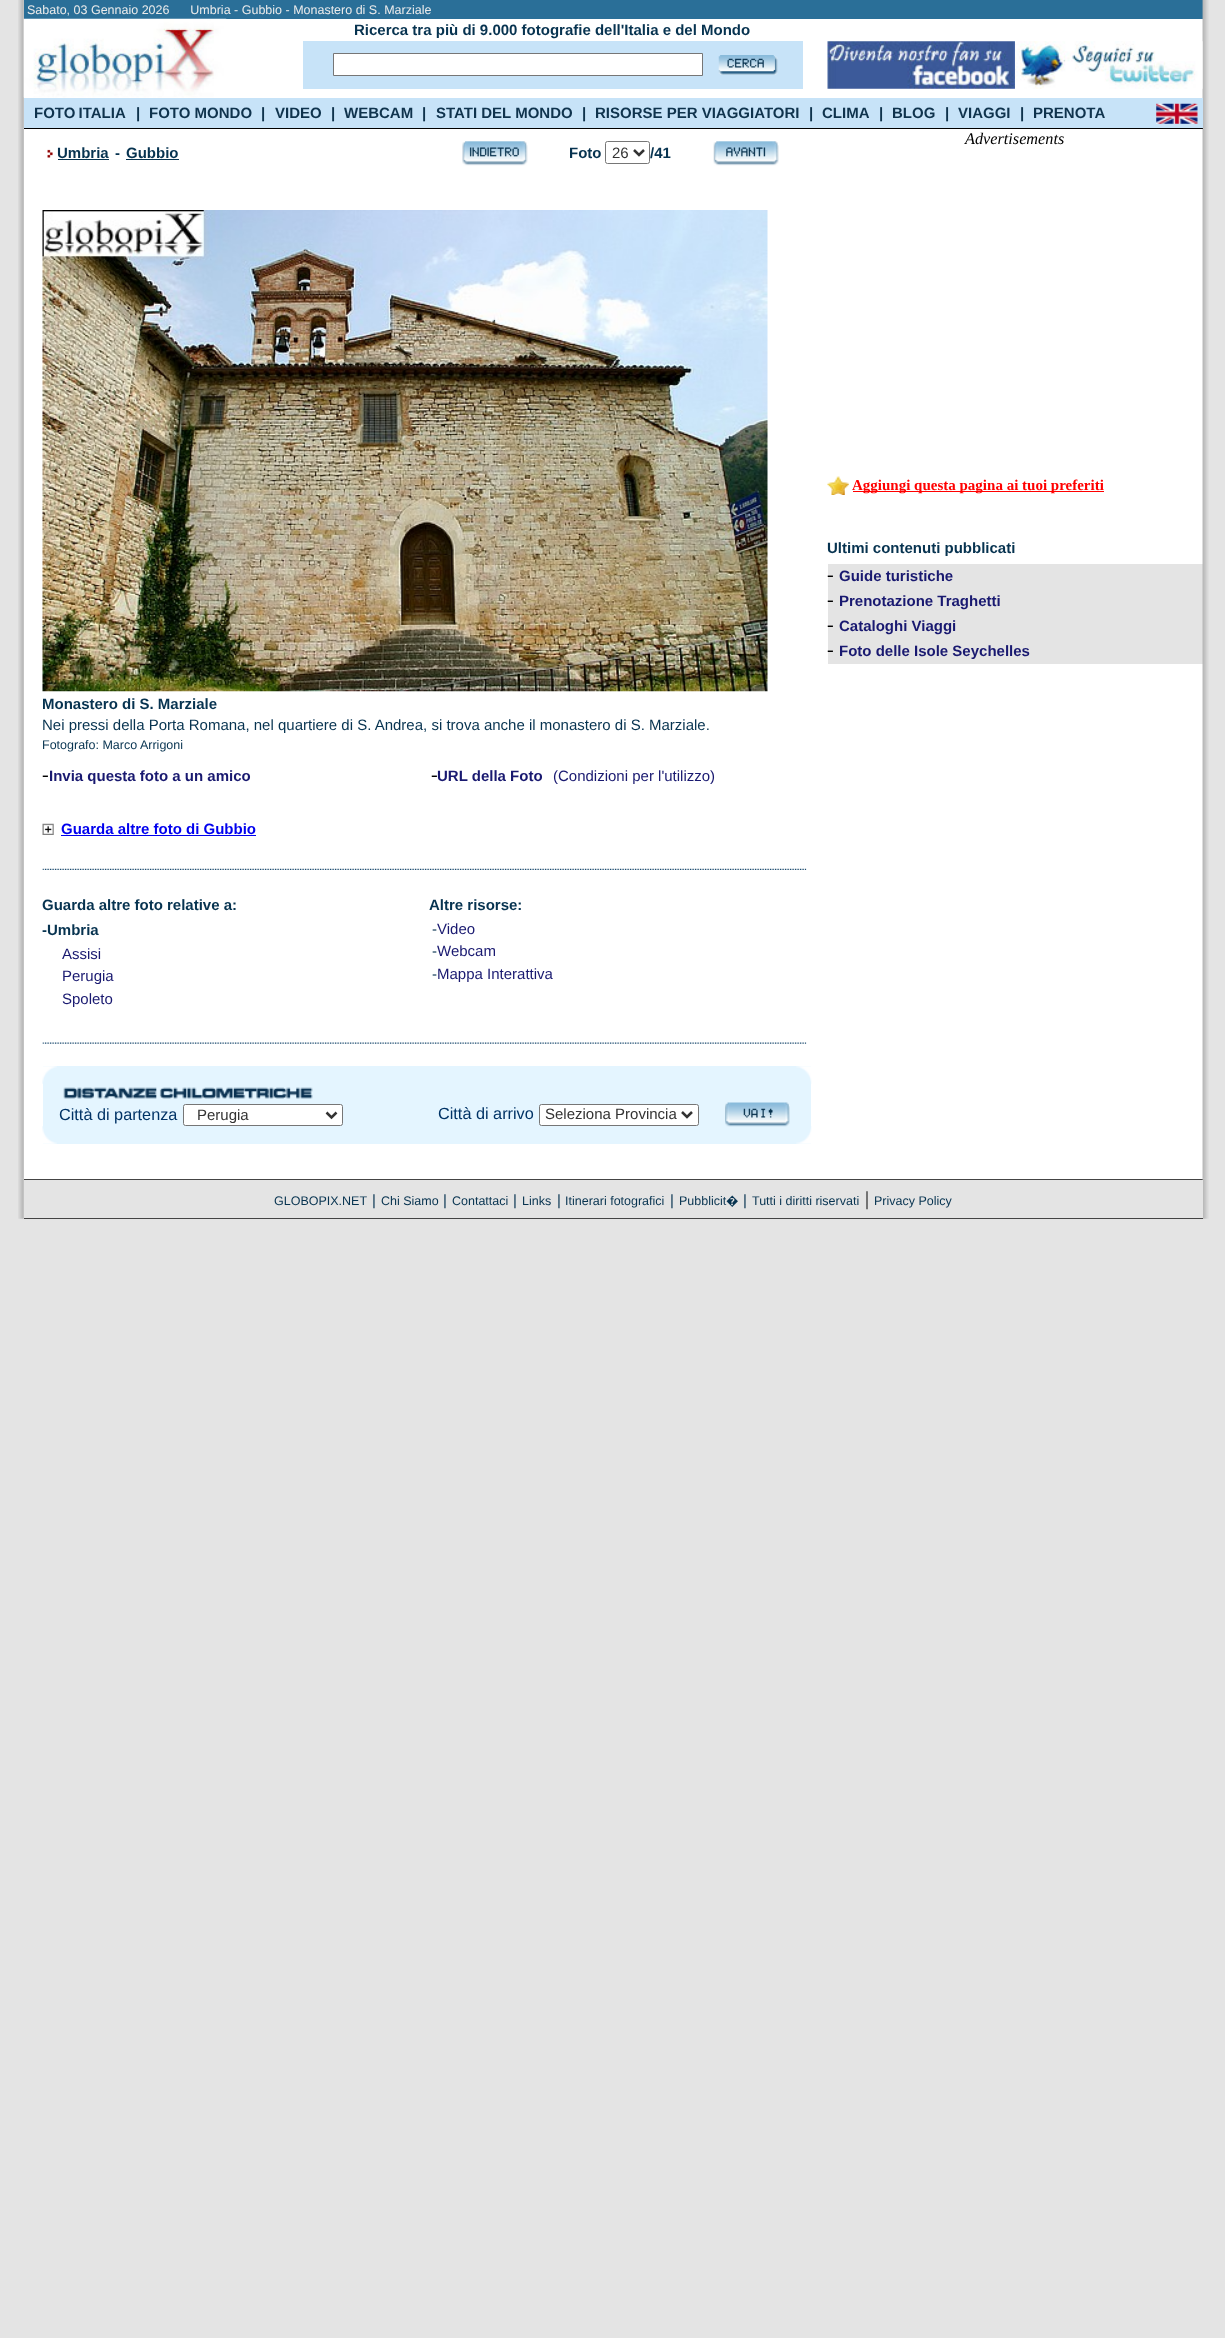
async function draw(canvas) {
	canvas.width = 1225;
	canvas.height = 2338;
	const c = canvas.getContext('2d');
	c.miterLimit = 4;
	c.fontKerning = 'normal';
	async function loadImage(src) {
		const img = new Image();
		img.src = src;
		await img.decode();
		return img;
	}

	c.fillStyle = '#e4e4e4';
	c.fillRect(0, 0, 1225, 2338);
	c.drawImage(await loadImage('img1.png'), 18, 0, 6, 129);
	c.fillStyle = '#2a6f98';
	c.fillRect(24, 0, 1179, 19);
	c.font = '12.5px Liberation Sans';
	c.fillStyle = '#ebebeb';
	c.fillText('Sabato, 03 Gennaio 2026      Umbria - Gubbio - Monastero di S. Marziale', 27, 14);
	c.fillStyle = '#fff';
	c.fillRect(24, 19, 1179, 79);
	c.drawImage(await loadImage('img2.png'), 23, 18, 204, 80);
	c.font = 'bold 15px Liberation Sans';
	c.fillStyle = '#073350';
	c.fillText('Ricerca tra più di 9.000 fotografie dell\'Italia e del Mondo', 354, 35);
	c.fillStyle = '#c7e3f8';
	c.fillRect(303, 41, 500, 48);
	c.fillStyle = '#fff';
	c.beginPath();
	c.rect(333.5, 53.5, 369, 22);
	c.fill();
	c.strokeStyle = '#767676';
	c.stroke();
	c.drawImage(await loadImage('img3.png'), 718, 55, 60, 20);
	c.drawImage(await loadImage('img4.png'), 827, 41, 188, 48);
	c.drawImage(await loadImage('img6.png'), 1202, 0, 7, 129);
	c.drawImage(await loadImage('img5.png'), 1015, 41, 188, 48);
	c.fillStyle = '#c7e3f8';
	c.fillRect(24, 98, 1179, 30);
	c.wordSpacing = '-1px';
	c.fillStyle = '#0f334d';
	c.fillText('FOTO ITALIA', 34, 118);
	c.wordSpacing = '0px';
	for (const [text, x, y] of [
		['|', 136, 118],
		['FOTO MONDO', 149, 118],
		['|', 261, 118],
		['VIDEO', 275, 118],
		['|', 331, 118],
		['WEBCAM', 344, 118],
		['|', 422, 118],
		['STATI DEL MONDO', 436, 118],
		['|', 582, 118],
		['RISORSE PER VIAGGIATORI', 595, 118],
		['|', 809, 118],
		['CLIMA', 822, 118],
		['|', 879, 118],
		['BLOG', 892, 118],
		['|', 945, 118],
		['VIAGGI', 958, 118],
		['|', 1020, 118],
		['PRENOTA', 1033, 118],
	]) {
		c.fillText(text, x, y);
	}
	c.drawImage(await loadImage('img7.png'), 1156, 103, 42, 21);
	c.fillStyle = '#000';
	c.fillRect(24, 128, 1179, 1);
	c.drawImage(await loadImage('img8.png'), 18, 128, 6, 1051);
	c.fillStyle = '#fff';
	c.fillRect(24, 129, 1179, 1050);
	c.fillStyle = '#073350';
	c.fillText('Umbria', 57, 158);
	c.drawImage(await loadImage('img9.png'), 47, 147, 11, 11);
	c.fillRect(58, 159, 51, 1);
	c.fillText('-', 115, 158);
	c.fillText('Gubbio', 126, 158);
	c.fillRect(126, 159, 53, 1);
	c.drawImage(await loadImage('img10.png'), 462, 141, 66, 25);
	c.fillText('Foto', 569, 158);
	c.beginPath();
	c.roundRect(605.5, 141.5, 44, 22, 2);
	c.stroke();
	c.beginPath();
	c.moveTo(634, 150);
	c.lineTo(639, 155);
	c.lineTo(644, 150);
	c.strokeStyle = '#333';
	c.lineWidth = 2.5;
	c.stroke();
	c.font = '15px Liberation Sans';
	c.fillStyle = '#333';
	c.fillText('26', 612, 158);
	c.font = 'bold 15px Liberation Sans';
	c.fillStyle = '#073350';
	c.fillText('/41', 650, 158);
	c.drawImage(await loadImage('img11.png'), 713, 141, 66, 25);
	c.drawImage(await loadImage('img12.png'), 42, 210, 726, 482);
	c.fillText('Monastero di S. Marziale', 42, 709);
	c.font = '15px Liberation Sans';
	c.fillText('Nei pressi della Porta Romana, nel quartiere di S. Andrea, si trova anche il monastero di S. Marziale.', 42, 730);
	c.font = '12.5px Liberation Sans';
	c.fillText('Fotografo: Marco Arrigoni', 42, 749);
	c.font = '20px Liberation Serif';
	c.fillStyle = '#000';
	c.fillText('-', 42, 781);
	c.font = 'bold 15px Liberation Sans';
	c.fillStyle = '#191970';
	c.fillText('Invia questa foto a un amico', 49, 781);
	c.font = '20px Liberation Serif';
	c.fillStyle = '#000';
	c.fillText('-', 431, 781);
	c.font = 'bold 15px Liberation Sans';
	c.fillStyle = '#191970';
	c.fillText('URL della Foto', 437, 781);
	c.font = '15px Liberation Sans';
	c.fillText('(Condizioni per l\'utilizzo)', 553, 781);
	c.drawImage(await loadImage('img13.png'), 42, 823, 12, 12);
	c.font = 'bold 15px Liberation Sans';
	c.fillStyle = '#00e';
	c.fillText('Guarda altre foto di Gubbio', 61, 834);
	c.fillRect(61, 835, 195, 1);
	c.drawImage(await loadImage('img14.png'), 42, 868, 765, 2);
	c.fillStyle = '#073350';
	for (const [text, x, y] of [
		['Guarda altre foto relative a:', 42, 910],
		['Altre risorse:', 429, 910],
		['-Umbria', 42, 935],
	]) {
		c.fillText(text, x, y);
	}
	c.font = '15px Liberation Sans';
	c.fillStyle = '#191970';
	for (const [text, x, y] of [
		['Assisi', 62, 959],
		['Perugia', 62, 981],
		['Spoleto', 62, 1004],
	]) {
		c.fillText(text, x, y);
	}
	c.fillStyle = '#073350';
	c.fillText('-', 432, 934);
	c.fillStyle = '#191970';
	c.fillText('Video', 437, 934);
	c.fillStyle = '#073350';
	c.fillText('-', 432, 956);
	c.fillStyle = '#191970';
	c.fillText('Webcam', 437, 956);
	c.fillStyle = '#073350';
	c.fillText('-', 432, 979);
	c.fillStyle = '#191970';
	c.fillText('Mappa Interattiva', 437, 979);
	c.drawImage(await loadImage('img15.png'), 42, 1042, 765, 2);
	c.fillStyle = '#e4f5ff';
	c.fillRect(43, 1066, 768, 78);
	c.drawImage(await loadImage('img16.png'), 42, 1066, 15, 18);
	c.drawImage(await loadImage('img17.png'), 796, 1066, 16, 18);
	c.drawImage(await loadImage('img18.png'), 63, 1087, 250, 12);
	c.font = '16.25px Liberation Sans';
	c.fillStyle = '#036';
	c.fillText('Città di partenza', 59, 1120);
	c.fillStyle = '#fff';
	c.beginPath();
	c.roundRect(183.5, 1104.5, 159, 21, 2);
	c.fill();
	c.strokeStyle = '#767676';
	c.lineWidth = 1;
	c.stroke();
	c.beginPath();
	c.moveTo(326.5, 1112.5);
	c.lineTo(331.5, 1117.5);
	c.lineTo(336.5, 1112.5);
	c.strokeStyle = '#333';
	c.lineWidth = 2.5;
	c.stroke();
	c.font = '15px Liberation Sans';
	c.fillStyle = '#333';
	c.fillText('Perugia', 197, 1120);
	c.font = '16.25px Liberation Sans';
	c.fillStyle = '#036';
	c.fillText('Città di arrivo', 438, 1119);
	c.fillStyle = '#fff';
	c.beginPath();
	c.roundRect(539.5, 1104.5, 159, 21, 2);
	c.fill();
	c.strokeStyle = '#767676';
	c.lineWidth = 1;
	c.stroke();
	c.beginPath();
	c.moveTo(682, 1112);
	c.lineTo(687, 1117);
	c.lineTo(692, 1112);
	c.strokeStyle = '#333';
	c.lineWidth = 2.5;
	c.stroke();
	c.font = '15px Liberation Sans';
	c.fillStyle = '#333';
	c.fillText('Seleziona Provincia', 545, 1119);
	c.drawImage(await loadImage('img19.png'), 725, 1102, 65, 25);
	c.drawImage(await loadImage('img20.png'), 42, 1126, 15, 18);
	c.drawImage(await loadImage('img21.png'), 796, 1126, 16, 18);
	c.font = 'italic 16.25px Liberation Serif';
	c.fillStyle = '#000';
	c.fillText('Advertisements', 965, 144);
	c.drawImage(await loadImage('img22.png'), 827, 476, 22, 19);
	c.fillStyle = '#f00';
	c.fillRect(853, 491, 251, 1);
	c.font = 'bold 15px Liberation Serif';
	c.fillText('Aggiungi questa pagina ai tuoi preferiti', 852, 490);
	c.font = 'bold 15px Liberation Sans';
	c.fillStyle = '#073350';
	c.fillText('Ultimi contenuti pubblicati', 827, 553);
	c.fillStyle = '#e4e4e4';
	c.fillRect(828, 564, 375, 100);
	c.font = '20px Liberation Serif';
	c.fillStyle = '#000';
	c.fillText('-', 827, 581);
	c.font = 'bold 15px Liberation Sans';
	c.fillStyle = '#191970';
	c.fillText('Guide turistiche', 839, 581);
	c.font = '20px Liberation Serif';
	c.fillStyle = '#000';
	c.fillText('-', 827, 606);
	c.font = 'bold 15px Liberation Sans';
	c.fillStyle = '#191970';
	c.fillText('Prenotazione Traghetti', 839, 606);
	c.font = '20px Liberation Serif';
	c.fillStyle = '#000';
	c.fillText('-', 827, 631);
	c.font = 'bold 15px Liberation Sans';
	c.fillStyle = '#191970';
	c.fillText('Cataloghi Viaggi', 839, 631);
	c.font = '20px Liberation Serif';
	c.fillStyle = '#000';
	c.fillText('-', 827, 656);
	c.font = 'bold 15px Liberation Sans';
	c.fillStyle = '#191970';
	c.fillText('Foto delle Isole Seychelles', 839, 656);
	c.drawImage(await loadImage('img23.png'), 1202, 128, 7, 1051);
	c.drawImage(await loadImage('img24.png'), 18, 1178, 6, 41);
	c.fillStyle = '#444';
	c.fillRect(24, 1179, 1179, 1);
	c.drawImage(await loadImage('img25.png'), 1202, 1178, 7, 41);
	c.fillStyle = '#e4e4e4';
	c.fillRect(1202, 1180, 1, 38);
	c.font = '12.5px Liberation Sans';
	c.fillStyle = '#073350';
	c.fillText('GLOBOPIX.NET', 274, 1205);
	c.font = '15px Liberation Sans';
	c.fillText('|', 372, 1205);
	c.font = '12.5px Liberation Sans';
	c.fillText('Chi Siamo', 381, 1205);
	c.font = '15px Liberation Sans';
	c.fillText('|', 443, 1205);
	c.font = '12.5px Liberation Sans';
	c.fillText('Contattaci', 452, 1205);
	c.font = '15px Liberation Sans';
	c.fillText('|', 513, 1205);
	c.font = '12.5px Liberation Sans';
	c.fillText('Links', 522, 1205);
	c.font = '15px Liberation Sans';
	c.fillText('|', 557, 1205);
	c.font = '12.5px Liberation Sans';
	c.fillText('Itinerari fotografici', 565, 1205);
	c.font = '15px Liberation Sans';
	c.fillText('|', 670, 1205);
	c.font = '12.5px Liberation Sans';
	c.fillText('Pubblicit', 679, 1205);
	c.font = '12.5px Noto Sans';
	c.fillText('�', 726, 1205);
	c.font = '15px Liberation Sans';
	c.fillText('|', 743, 1205);
	c.font = '12.5px Liberation Sans';
	c.fillText('Tutti i diritti riservati', 752, 1205);
	c.font = '20px Liberation Serif';
	c.fillStyle = '#000';
	c.fillText('|', 865, 1205);
	c.font = '12.5px Liberation Sans';
	c.fillStyle = '#073350';
	c.fillText('Privacy Policy', 874, 1205);
	c.fillStyle = '#444';
	c.fillRect(24, 1218, 1179, 1);
}

draw(document.querySelector('canvas'));
